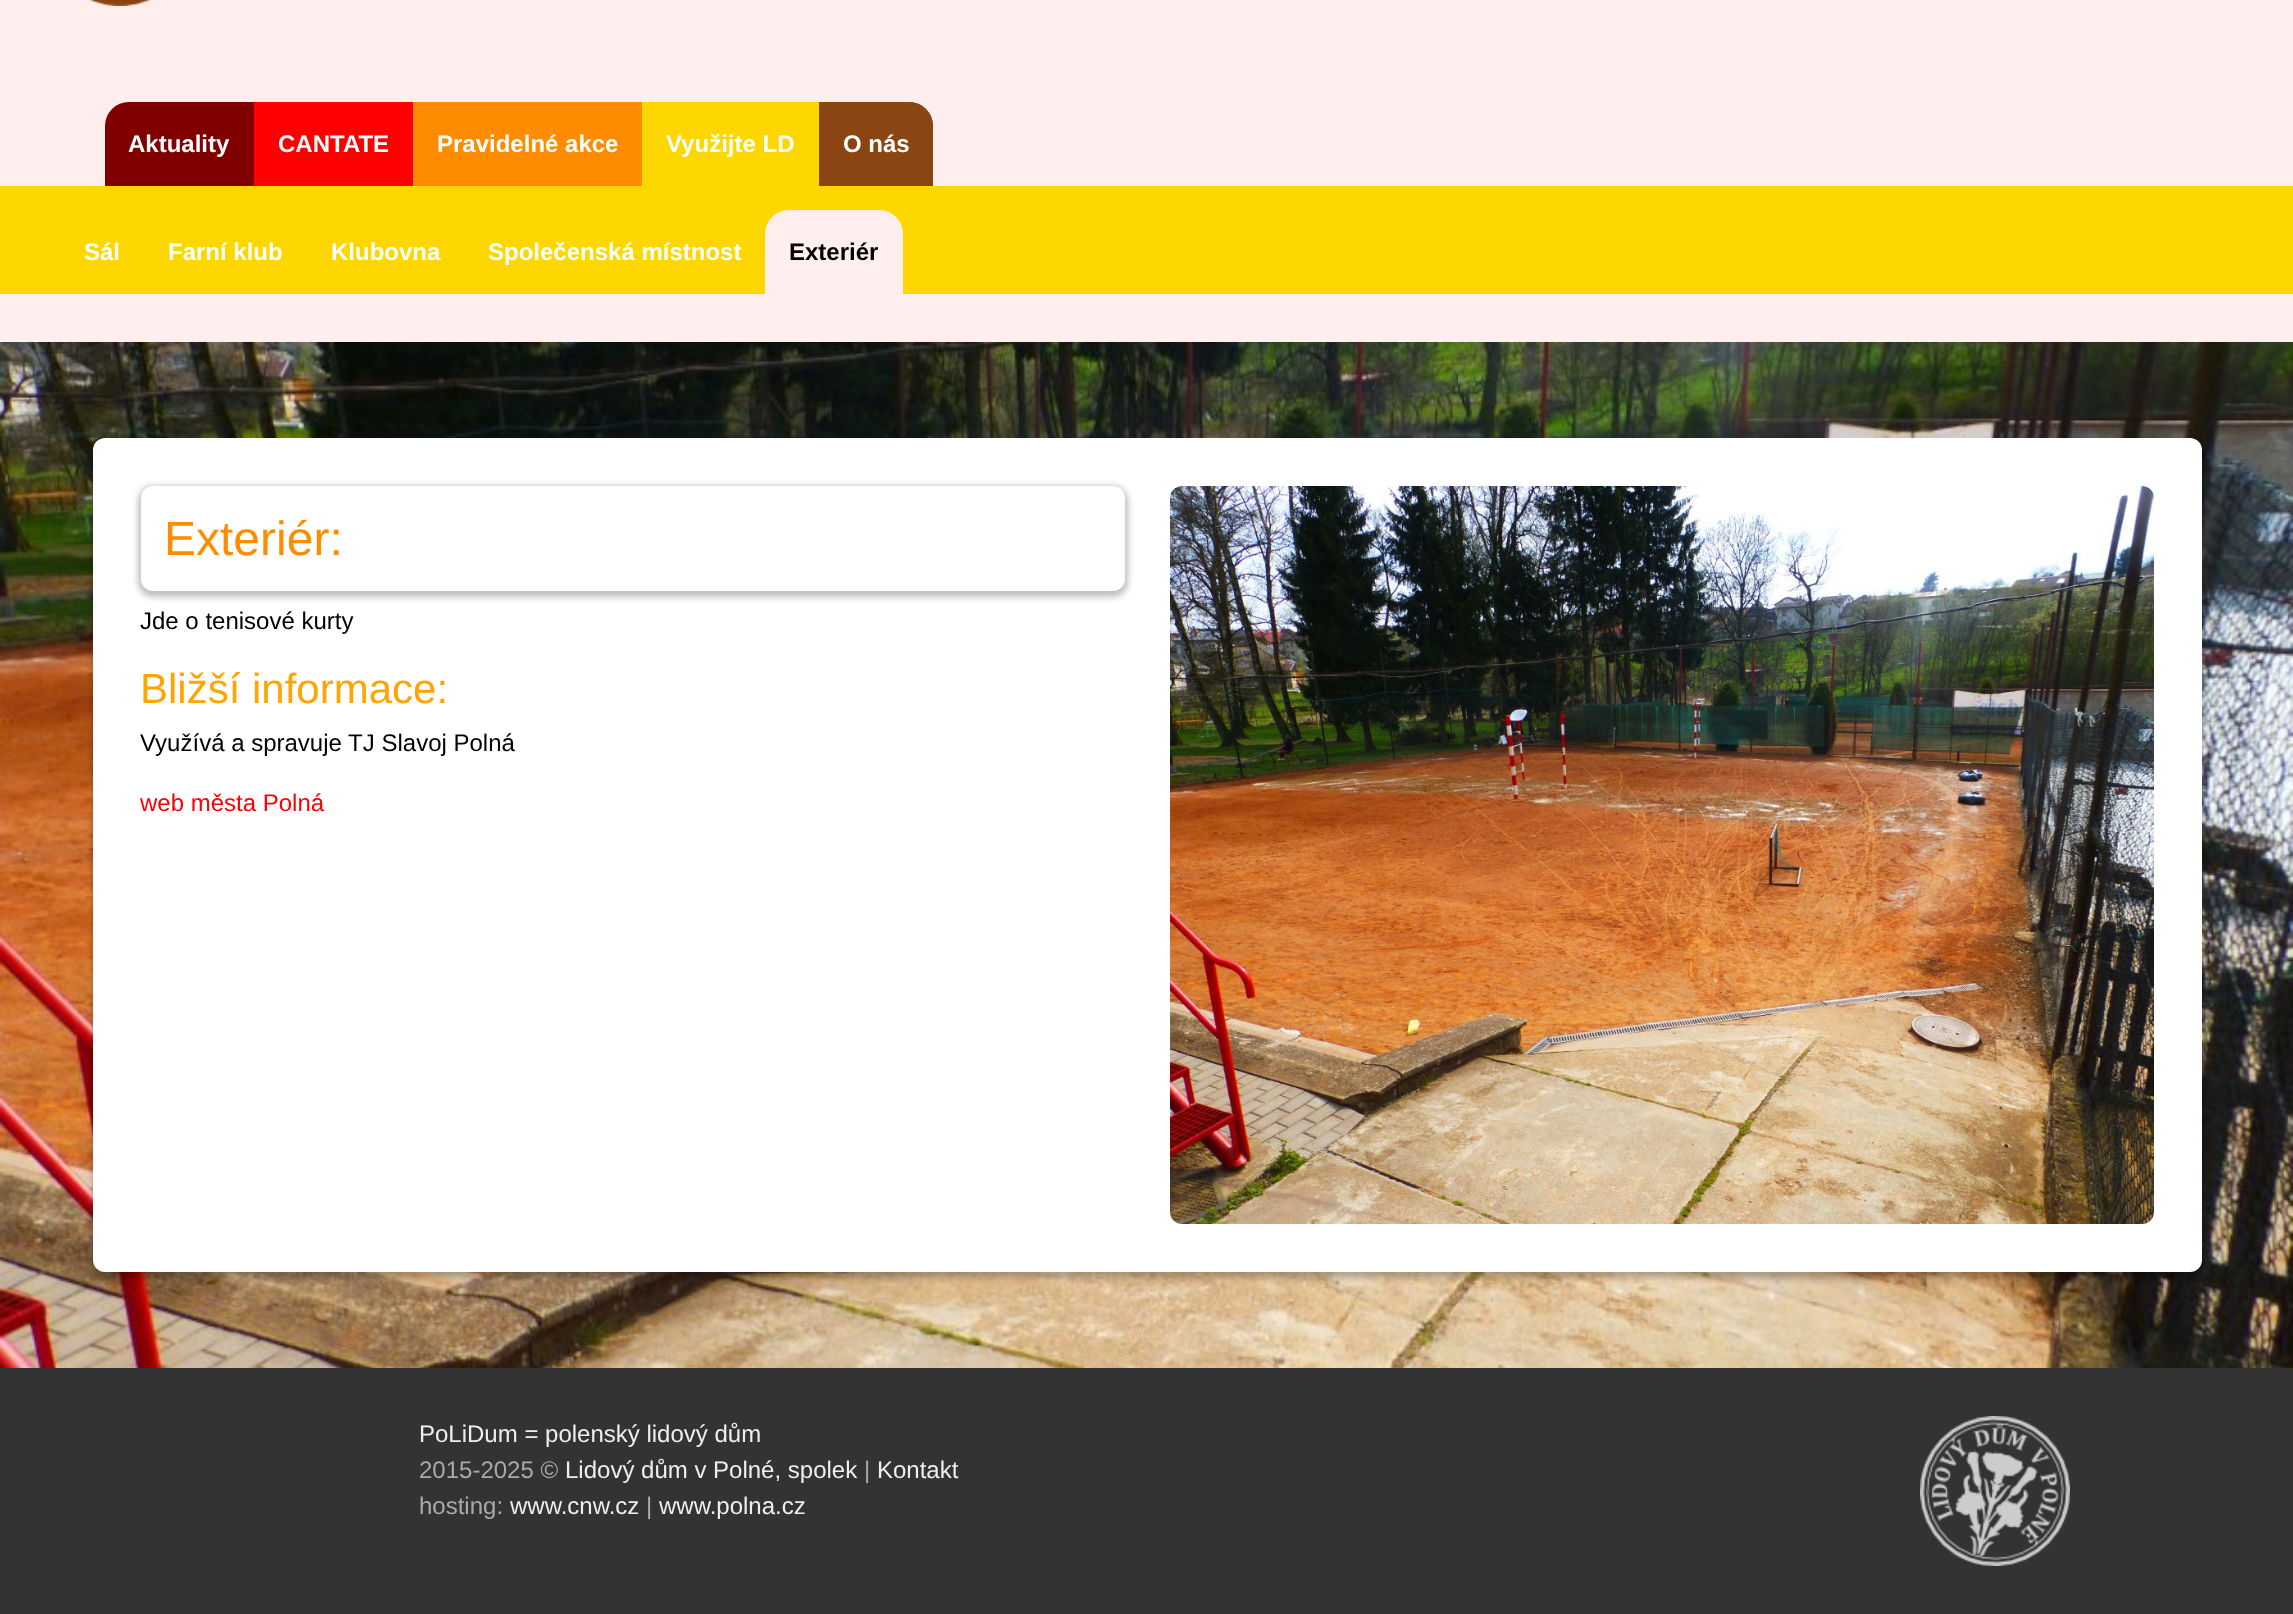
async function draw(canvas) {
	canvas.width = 2293;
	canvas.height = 1614;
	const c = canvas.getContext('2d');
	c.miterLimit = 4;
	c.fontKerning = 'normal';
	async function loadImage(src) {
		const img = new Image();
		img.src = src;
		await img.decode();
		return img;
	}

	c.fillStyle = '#fee';
	c.fillRect(0, 0, 2293, 1614);
	c.drawImage(await loadImage('img1.png'), 88, 0, 64, 6);
	c.fillStyle = '#ffd700';
	c.fillRect(642, 102, 177, 84);
	c.font = 'bold 24px Liberation Sans';
	c.fillStyle = '#fff';
	c.fillText('Využijte LD', 666, 152);
	c.fillStyle = '#ffd700';
	c.fillRect(0, 186, 2293, 108);
	c.fillStyle = '#fff';
	for (const [text, x, y] of [
		['Sál', 84, 260],
		['Farní klub', 168, 260],
		['Klubovna', 331, 260],
		['Společenská místnost', 488, 260],
	]) {
		c.fillText(text, x, y);
	}
	c.fillStyle = '#fee';
	c.beginPath();
	c.roundRect(765, 210, 138, 84, [24, 24, 0, 0]);
	c.fill();
	c.fillStyle = '#000';
	c.fillText('Exteriér', 789, 260);
	c.fillStyle = '#800000';
	c.beginPath();
	c.roundRect(105, 102, 149, 84, [24, 0, 0, 0]);
	c.fill();
	c.fillStyle = '#fff';
	c.fillText('Aktuality', 128, 152);
	c.fillStyle = '#f00';
	c.fillRect(254, 102, 159, 84);
	c.fillStyle = '#fff';
	c.fillText('CANTATE', 278, 152);
	c.fillStyle = '#ff8c00';
	c.fillRect(413, 102, 229, 84);
	c.fillStyle = '#fff';
	c.fillText('Pravidelné akce', 437, 152);
	c.fillStyle = '#8b4513';
	c.beginPath();
	c.roundRect(819, 102, 114, 84, [0, 24, 0, 0]);
	c.fill();
	c.beginPath();
	c.roundRect(819, 102, 114, 84, [24, 24, 0, 0]);
	c.fill();
	c.fillStyle = '#fff';
	c.fillText('O nás', 843, 152);
	c.drawImage(await loadImage('img2.png'), 0, 342, 2293, 1026);
	c.fillStyle = '#00000040';
	c.filter = 'blur(3px)';
	c.beginPath();
	c.roundRect(93, 444, 2109, 834, 12);
	c.fill();
	c.filter = 'none';
	c.fillStyle = '#fff';
	c.beginPath();
	c.roundRect(93, 438, 2109, 834, 12);
	c.fill();
	c.fillStyle = '#00000040';
	c.filter = 'blur(3px)';
	c.beginPath();
	c.roundRect(138, 486, 990, 111, 15);
	c.fill();
	c.filter = 'none';
	c.fillStyle = '#fff';
	c.beginPath();
	c.roundRect(141, 486, 984, 105, 12);
	c.fill();
	c.font = '48px Liberation Sans';
	c.fillStyle = '#ff8c00';
	c.fillText('Exteriér:', 164, 555);
	c.font = '24px Liberation Sans';
	c.fillStyle = '#000';
	c.fillText('Jde o tenisové kurty', 140, 629);
	c.font = '42px Liberation Sans';
	c.fillStyle = '#ffa500';
	c.fillText('Bližší informace:', 140, 703);
	c.font = '24px Liberation Sans';
	c.fillStyle = '#000';
	c.fillText('Využívá a spravuje TJ Slavoj Polná', 140, 751);
	c.fillStyle = '#f00';
	c.fillText('web města Polná', 140, 811);
	c.drawImage(await loadImage('img3.png'), 1170, 486, 984, 738);
	c.fillStyle = '#333';
	c.fillRect(0, 1368, 2293, 246);
	c.fillStyle = '#eee';
	c.fillText('PoLiDum = polenský lidový dům', 419, 1442);
	c.fillStyle = '#aaa';
	c.fillText('2015-2025 ©', 419, 1478);
	c.fillStyle = '#eee';
	c.fillText('Lidový dům v Polné, spolek', 565, 1478);
	c.fillStyle = '#aaa';
	c.fillText('|', 864, 1478);
	c.fillStyle = '#eee';
	c.fillText('Kontakt', 877, 1478);
	c.fillStyle = '#aaa';
	c.fillText('hosting:', 419, 1514);
	c.fillStyle = '#eee';
	c.fillText('www.cnw.cz', 510, 1514);
	c.fillStyle = '#aaa';
	c.fillText('|', 646, 1514);
	c.fillStyle = '#eee';
	c.fillText('www.polna.cz', 659, 1514);
	c.drawImage(await loadImage('img4.png'), 1920, 1416, 150, 150);
}

draw(document.querySelector('canvas'));
